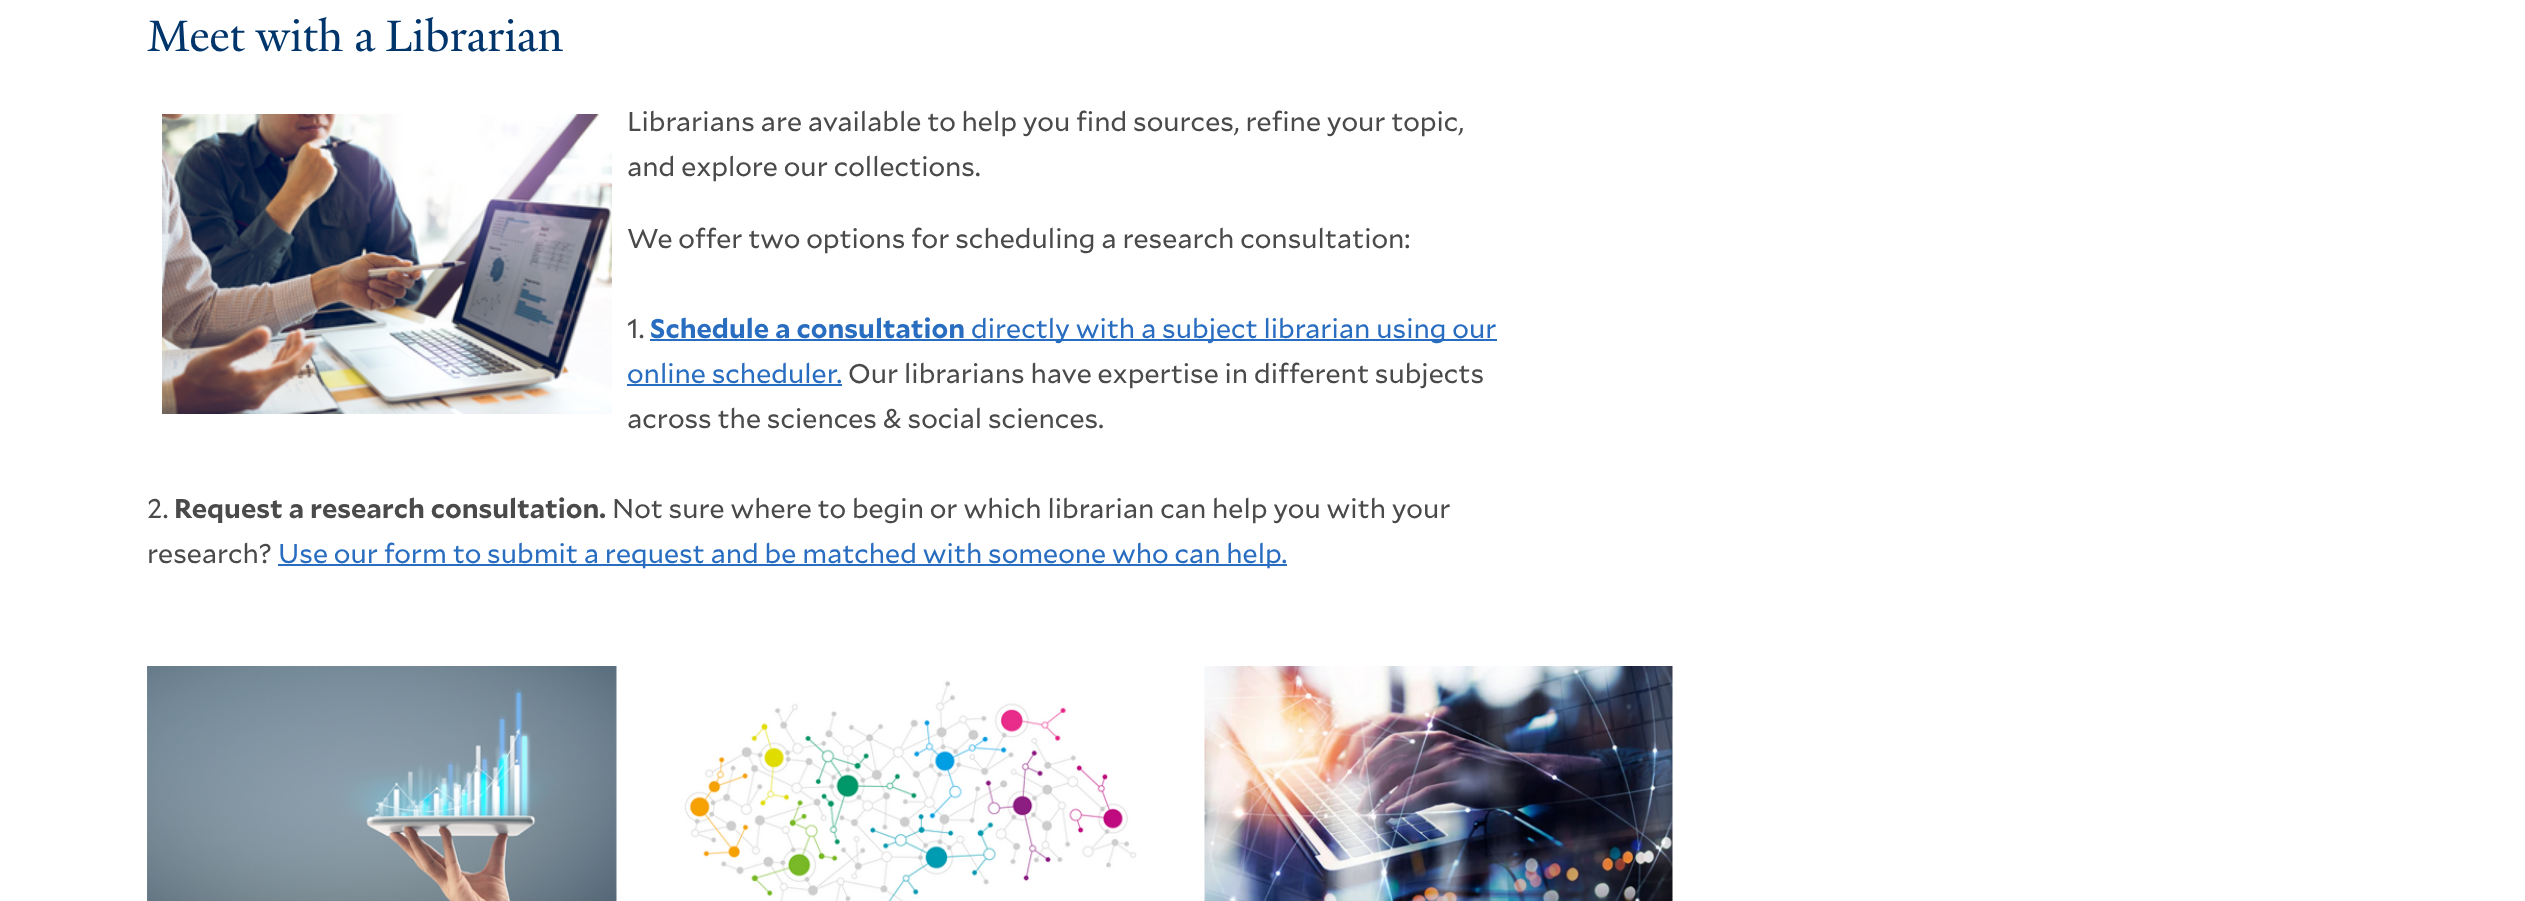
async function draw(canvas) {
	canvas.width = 2525;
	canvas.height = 901;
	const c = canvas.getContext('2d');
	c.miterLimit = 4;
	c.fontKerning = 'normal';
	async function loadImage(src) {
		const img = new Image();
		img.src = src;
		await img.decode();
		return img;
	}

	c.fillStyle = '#fff';
	c.fillRect(0, 0, 2525, 901);
	c.font = '47.75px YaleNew';
	c.fillStyle = '#00356b';
	c.fillText('Meet with a Librarian', 147, 51);
	c.drawImage(await loadImage('img1.png'), 162, 114, 450, 300);
	c.font = '27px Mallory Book';
	c.fillStyle = '#4a4a4a';
	for (const [text, x, y] of [
		['Librarians are available to help you find sources, refine your topic,', 627, 131],
		['and explore our collections.', 627, 176],
		['We offer two options for scheduling a research consultation:', 627, 248],
		['1.', 627, 338],
	]) {
		c.fillText(text, x, y);
	}
	c.font = 'bold 27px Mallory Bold';
	c.fillStyle = '#286dc0';
	c.fillText('Schedule a consultation', 650, 338);
	c.fillRect(650, 339, 847, 2);
	c.font = '27px Mallory Book';
	c.fillText('directly with a subject librarian using our', 971, 338);
	c.fillText('online scheduler.', 627, 383);
	c.fillRect(627, 384, 215, 2);
	c.fillStyle = '#4a4a4a';
	for (const [text, x, y] of [
		['Our librarians have expertise in different subjects', 848, 383],
		['across the sciences & social sciences.', 627, 428],
		['2.', 147, 518],
	]) {
		c.fillText(text, x, y);
	}
	c.font = 'bold 27px Mallory Bold';
	c.fillText('Request a research consultation.', 174, 518);
	c.font = '27px Mallory Book';
	c.fillText('Not sure where to begin or which librarian can help you with your', 612, 518);
	c.fillText('research?', 147, 563);
	c.fillStyle = '#286dc0';
	c.fillRect(278, 564, 1009, 2);
	c.fillText('Use our form to submit a request and be matched with someone who can help.', 278, 563);
	c.drawImage(await loadImage('img2.png'), 147, 666, 470, 235);
	c.drawImage(await loadImage('img3.png'), 684, 680, 453, 221);
	c.drawImage(await loadImage('img4.png'), 1204, 666, 469, 235);
}

draw(document.querySelector('canvas'));
